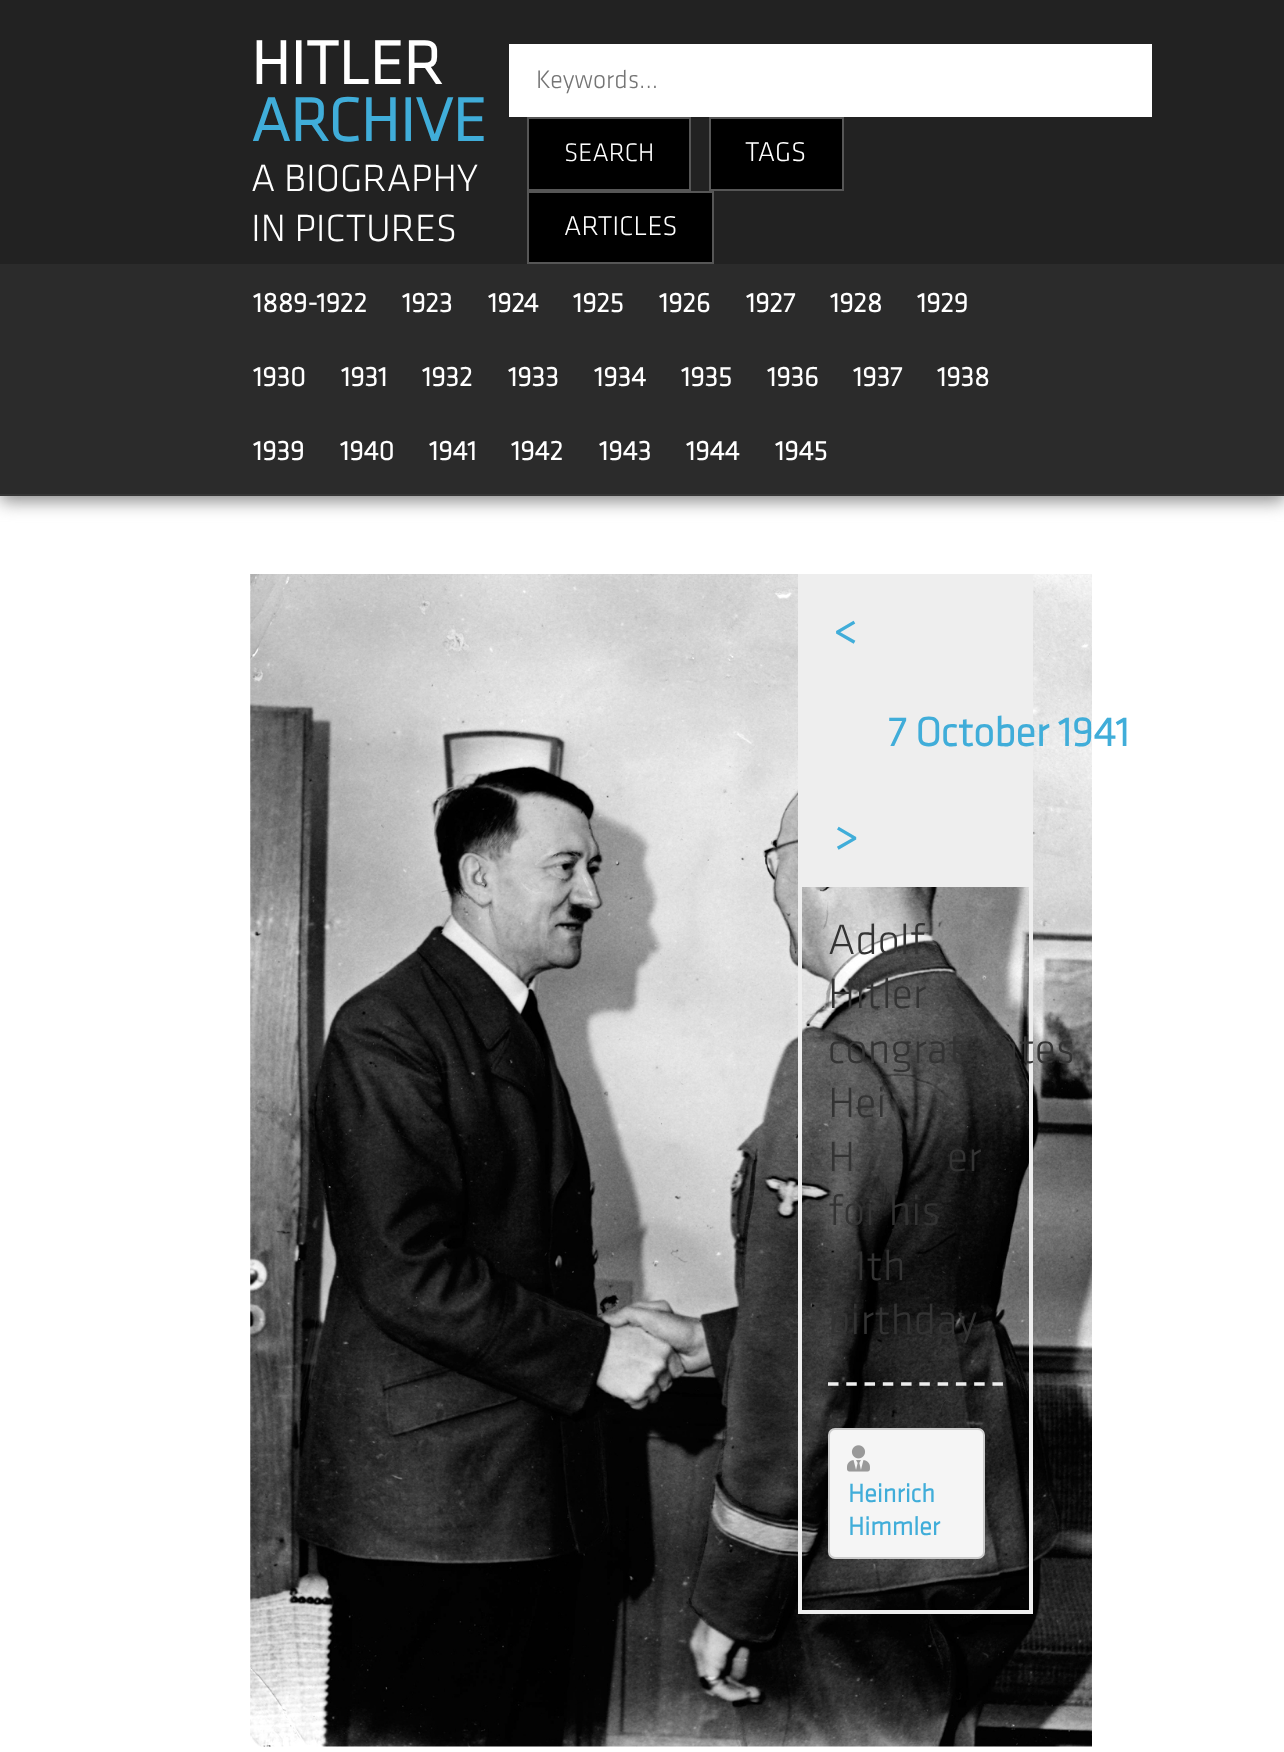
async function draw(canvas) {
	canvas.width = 1284;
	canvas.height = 1752;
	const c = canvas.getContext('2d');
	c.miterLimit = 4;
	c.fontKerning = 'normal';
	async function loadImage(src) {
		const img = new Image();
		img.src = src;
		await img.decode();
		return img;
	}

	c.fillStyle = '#fff';
	c.fillRect(0, 0, 1284, 1752);
	c.fillStyle = '#888';
	c.filter = 'blur(9px)';
	c.beginPath();
	c.rect(0, 5, 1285, 496);
	c.fill();
	c.filter = 'none';
	c.fillStyle = '#222';
	c.fillRect(0, 0, 1284, 264);
	c.font = 'bold 63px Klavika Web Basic';
	c.fillStyle = '#fff';
	c.fillText('HITLER', 251, 84);
	c.fillStyle = '#40add9';
	c.fillText('ARCHIVE', 251, 141);
	c.font = '300 39.25px Klavika Web Basic';
	c.fillStyle = '#fff';
	c.fillText('A BIOGRAPHY', 251, 191);
	c.fillText('IN PICTURES', 251, 241);
	c.fillRect(509, 44, 643, 73);
	c.font = '300 26.25px Klavika Web Basic';
	c.fillStyle = '#757575';
	c.fillText('Keywords...', 536, 88);
	c.fillStyle = '#000';
	c.beginPath();
	c.rect(528, 118, 162, 72);
	c.fill();
	c.strokeStyle = '#565656';
	c.lineWidth = 2;
	c.stroke();
	c.fillStyle = '#fff';
	c.fillText('SEARCH', 564, 161);
	c.fillStyle = '#000';
	c.beginPath();
	c.rect(710, 118, 133, 72);
	c.fill();
	c.stroke();
	c.font = '300 28px Klavika Web Basic';
	c.fillStyle = '#fff';
	c.fillText('TAGS', 745, 161);
	c.fillStyle = '#000';
	c.beginPath();
	c.rect(528, 192, 185, 71);
	c.fill();
	c.stroke();
	c.fillStyle = '#fff';
	c.fillText('ARTICLES', 564, 235);
	c.fillStyle = '#2b2b2b';
	c.fillRect(0, 264, 1284, 230);
	c.fillStyle = '#363636';
	c.fillRect(0, 494, 1284, 2);
	c.font = 'bold 28px Klavika Web Basic';
	c.fillStyle = '#fff';
	for (const [text, x, y] of [
		['1889-1922', 253, 312],
		['1923', 402, 312],
		['1924', 488, 312],
		['1925', 573, 312],
		['1926', 659, 312],
		['1927', 746, 312],
		['1928', 830, 312],
		['1929', 917, 312],
		['1930', 253, 386],
		['1931', 341, 386],
		['1932', 422, 386],
		['1933', 508, 386],
		['1934', 594, 386],
		['1935', 681, 386],
		['1936', 767, 386],
		['1937', 853, 386],
		['1938', 937, 386],
		['1939', 253, 460],
		['1940', 340, 460],
		['1941', 429, 460],
		['1942', 511, 460],
		['1943', 599, 460],
		['1944', 686, 460],
		['1945', 775, 460],
	]) {
		c.fillText(text, x, y);
	}
	c.drawImage(await loadImage('img1.png'), 250, 574, 842, 1173);
	c.strokeStyle = '#eee';
	c.lineWidth = 4;
	c.strokeRect(800, 576, 231, 1036);
	c.fillStyle = '#eee';
	c.fillRect(802, 578, 227, 309);
	c.font = 'bold 42px Klavika Web Basic';
	c.fillStyle = '#40add9';
	for (const [text, x, y] of [
		['<', 834, 643],
		['7 October 1941', 888, 746],
		['>', 834, 849],
	]) {
		c.fillText(text, x, y);
	}
	c.font = '300 44px Klavika Web Basic';
	c.fillStyle = '#333';
	for (const [text, x, y] of [
		['Adolf', 828, 954],
		['Hitler', 828, 1008],
		['congrat', 828, 1063],
		['ates', 997, 1063],
		['Hei', 828, 1117],
		['H', 828, 1171],
		['er', 947, 1171],
		['for his', 828, 1225],
		['1th', 852, 1280],
		['birthday', 828, 1334],
	]) {
		c.fillText(text, x, y);
	}
	c.beginPath();
	c.moveTo(828, 1384);
	c.lineTo(1003, 1384);
	c.lineWidth = 3.5;
	c.setLineDash([10.5, 7.77]);
	c.stroke();
	c.fillStyle = '#f5f5f5';
	c.beginPath();
	c.roundRect(829, 1429, 155, 129, 6);
	c.fill();
	c.strokeStyle = '#ccc';
	c.lineWidth = 2;
	c.setLineDash([]);
	c.stroke();
	c.drawImage(await loadImage('img2.png'), 847, 1445, 23, 27);
	c.font = 'bold 26.25px Klavika Web Basic';
	c.fillStyle = '#40add9';
	c.fillText('Heinrich', 848, 1502);
	c.fillText('Himmler', 848, 1535);
}

draw(document.querySelector('canvas'));
